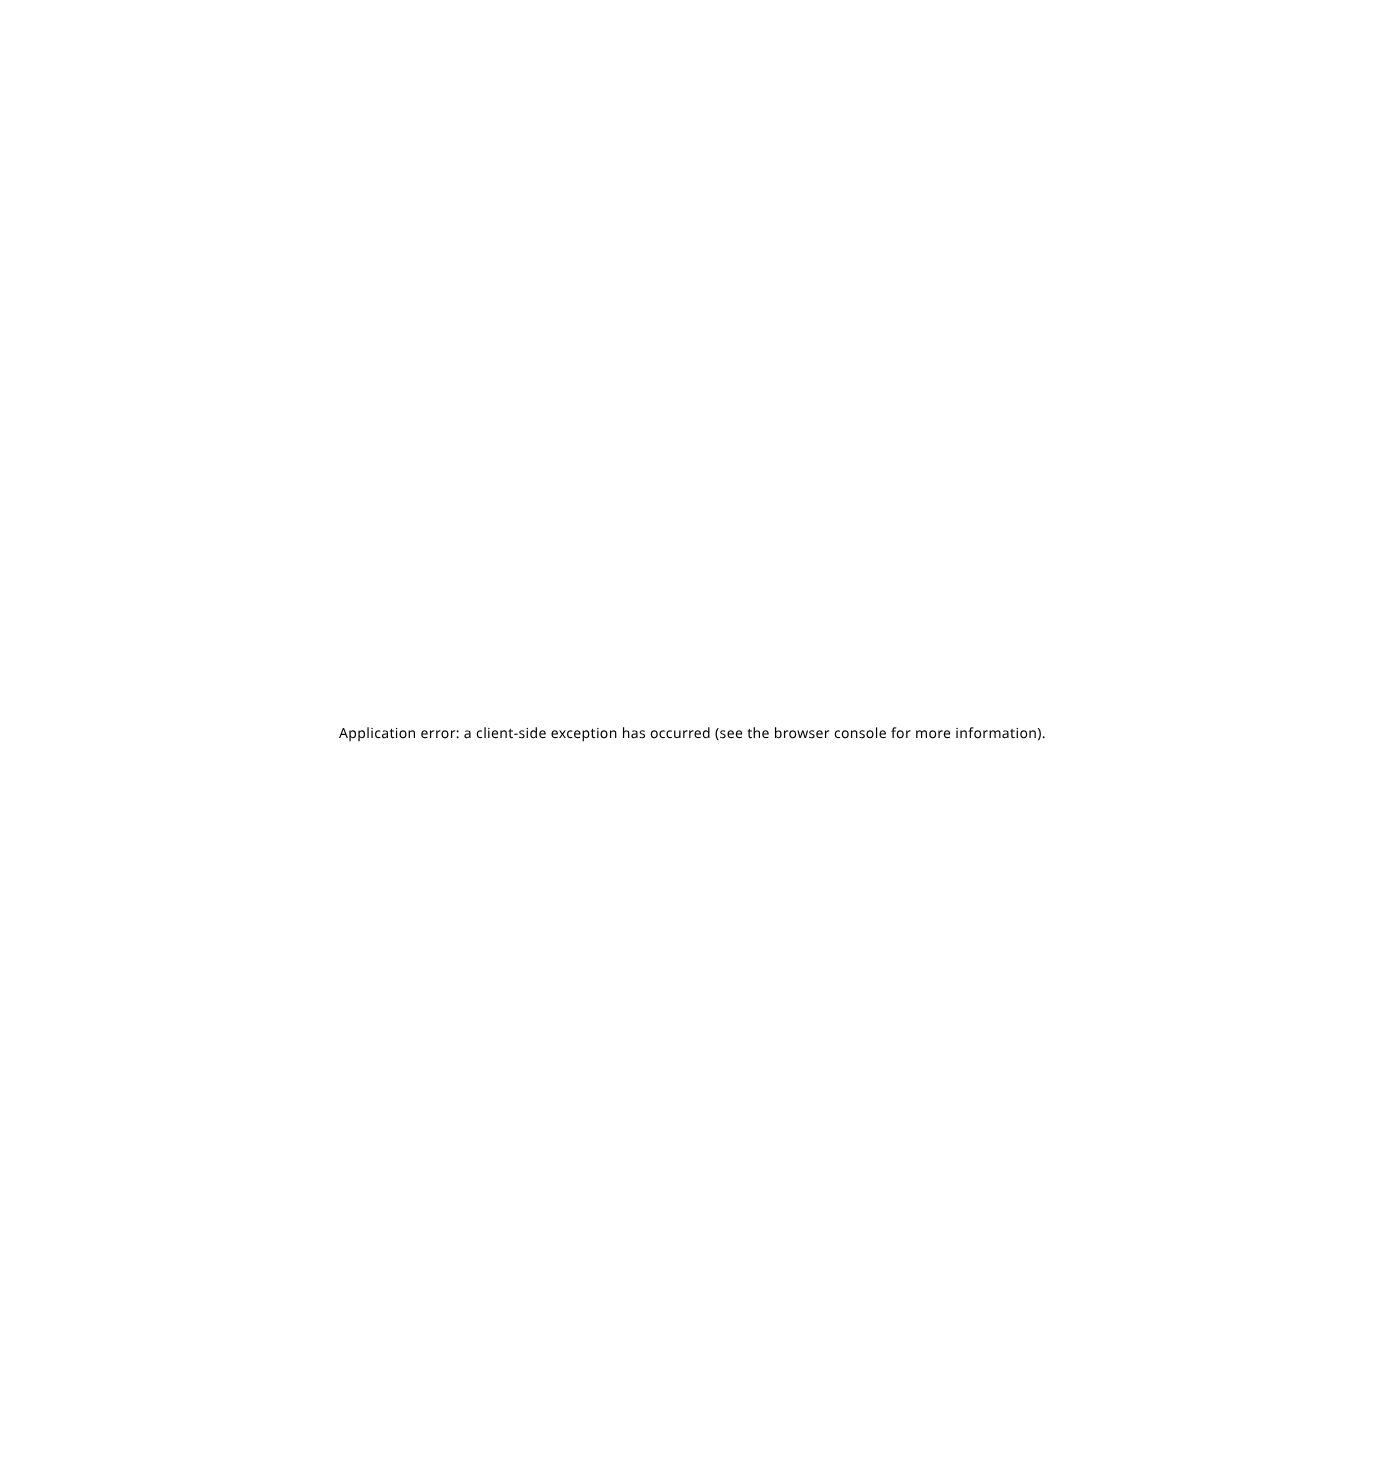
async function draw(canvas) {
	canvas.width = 1385;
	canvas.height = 1466;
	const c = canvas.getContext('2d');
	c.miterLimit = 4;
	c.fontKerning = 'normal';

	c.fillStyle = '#fff';
	c.fillRect(0, 0, 1385, 1466);
	c.letterSpacing = '0.35px';
	c.font = '14px Noto Sans';
	c.fillStyle = '#000';
	c.fillText('Application error: a client-side exception has occurred (see the browser console for more information).', 339, 738);
}

draw(document.querySelector('canvas'));
